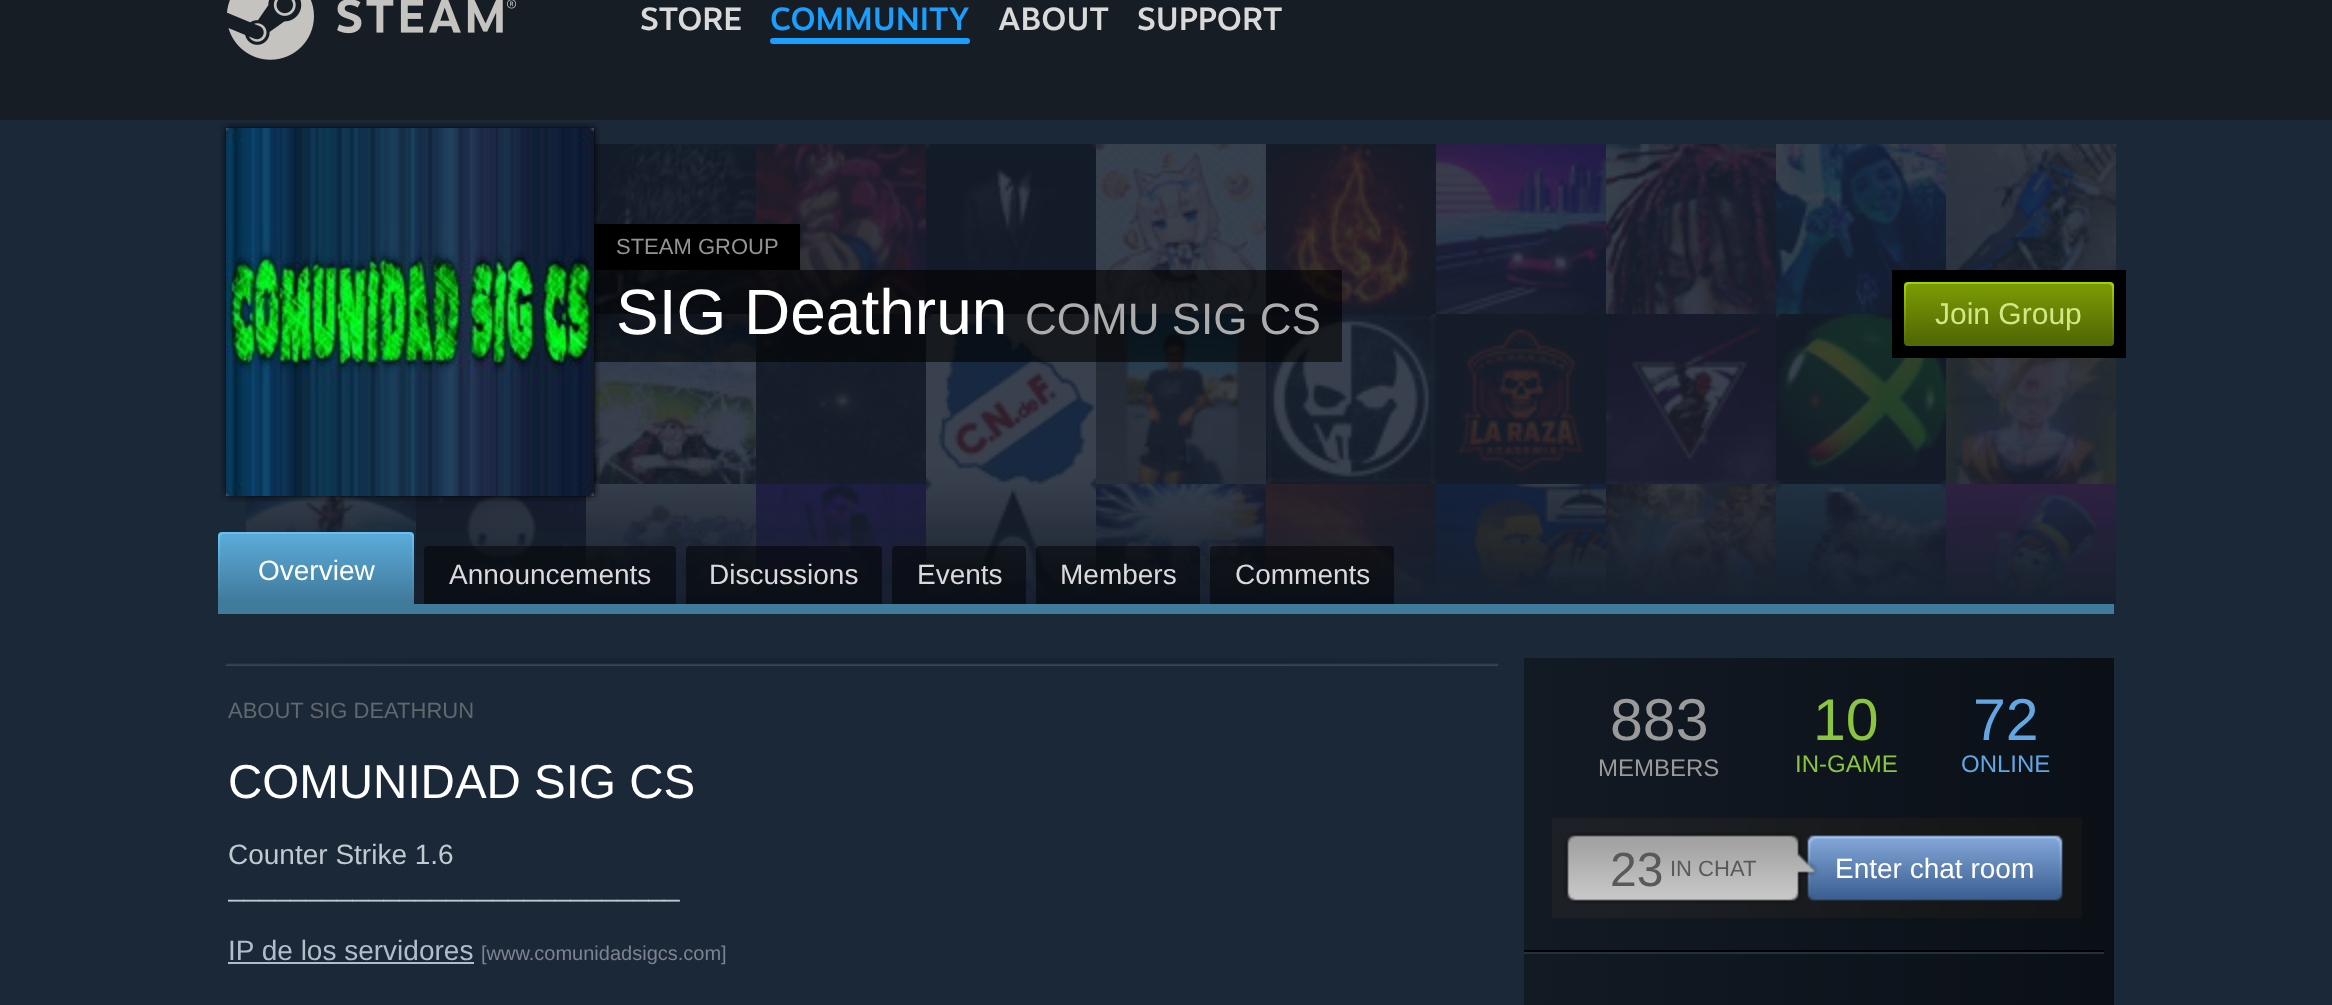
async function draw(canvas) {
	canvas.width = 2332;
	canvas.height = 1005;
	const c = canvas.getContext('2d');
	c.miterLimit = 4;
	c.fontKerning = 'normal';
	async function loadImage(src) {
		const img = new Image();
		img.src = src;
		await img.decode();
		return img;
	}
	let gradient;

	c.fillStyle = '#1b2838';
	c.fillRect(0, 0, 2332, 1005);
	c.fillStyle = '#171d25';
	c.fillRect(0, 0, 2332, 120);
	c.drawImage(await loadImage('img1.png'), 227, 0, 289, 60);
	c.font = '500 32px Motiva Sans';
	c.fillStyle = '#dadada';
	c.fillText('STORE', 640, 30);
	c.fillStyle = '#1a9fff';
	c.fillText('COMMUNITY', 770, 30);
	c.beginPath();
	c.roundRect(770, 38, 200, 6, 3);
	c.fill();
	c.fillStyle = '#dadada';
	c.fillText('ABOUT', 998, 30);
	c.fillText('SUPPORT', 1137, 30);
	c.fillStyle = '#417b9c';
	c.fillRect(218, 604, 1896, 10);
	c.drawImage(await loadImage('img3.png'), 594, 144, 162, 170);
	c.drawImage(await loadImage('img4.png'), 756, 144, 170, 170);
	c.drawImage(await loadImage('img5.png'), 926, 144, 170, 170);
	c.drawImage(await loadImage('img6.png'), 1096, 144, 170, 170);
	c.drawImage(await loadImage('img7.png'), 1266, 144, 170, 170);
	c.drawImage(await loadImage('img8.png'), 1436, 144, 170, 170);
	c.drawImage(await loadImage('img9.png'), 1606, 144, 170, 170);
	c.drawImage(await loadImage('img10.png'), 1776, 144, 170, 170);
	c.drawImage(await loadImage('img11.png'), 1946, 144, 170, 126);
	c.drawImage(await loadImage('img12.png'), 594, 314, 162, 170);
	c.drawImage(await loadImage('img13.png'), 756, 314, 170, 170);
	c.drawImage(await loadImage('img14.png'), 926, 314, 170, 170);
	c.drawImage(await loadImage('img15.png'), 1096, 314, 170, 170);
	c.drawImage(await loadImage('img16.png'), 1266, 314, 170, 170);
	c.drawImage(await loadImage('img17.png'), 1436, 314, 170, 170);
	c.drawImage(await loadImage('img18.png'), 1606, 314, 170, 170);
	c.drawImage(await loadImage('img19.png'), 1776, 314, 170, 170);
	c.drawImage(await loadImage('img20.png'), 1946, 358, 170, 126);
	c.drawImage(await loadImage('img21.png'), 246, 496, 170, 99);
	c.drawImage(await loadImage('img22.png'), 416, 496, 170, 99);
	c.drawImage(await loadImage('img23.png'), 586, 484, 170, 111);
	c.drawImage(await loadImage('img24.png'), 756, 484, 170, 111);
	c.drawImage(await loadImage('img25.png'), 926, 484, 170, 111);
	c.drawImage(await loadImage('img26.png'), 1096, 484, 170, 111);
	c.drawImage(await loadImage('img27.png'), 1266, 484, 170, 111);
	c.drawImage(await loadImage('img28.png'), 1436, 484, 170, 111);
	c.drawImage(await loadImage('img29.png'), 1606, 484, 170, 111);
	c.drawImage(await loadImage('img30.png'), 1776, 484, 170, 111);
	c.drawImage(await loadImage('img31.png'), 1946, 484, 170, 111);
	c.drawImage(await loadImage('img2.png'), 246, 144, 1870, 460);
	c.drawImage(await loadImage('img32.png'), 220, 122, 380, 380);
	c.drawImage(await loadImage('img33.png'), 226, 128, 368, 368);
	c.fillStyle = '#000';
	c.fillRect(594, 224, 206, 46);
	c.font = '22px Liberation Sans';
	c.fillStyle = '#949491';
	c.fillText('STEAM GROUP', 616, 254);
	c.fillStyle = '#00000099';
	c.fillRect(594, 270, 748, 92);
	c.font = '64px Liberation Sans';
	c.fillStyle = '#fff';
	c.fillText('SIG Deathrun', 616, 334);
	c.font = '44px Liberation Sans';
	c.fillStyle = '#acacac';
	c.fillText('COMU SIG CS', 1025, 334);
	c.fillStyle = '#000';
	c.fillRect(1892, 270, 234, 88);
	gradient = c.createLinearGradient(2009, 282, 2009, 346);
	gradient.addColorStop(0.05, '#a4d007');
	gradient.addColorStop(0.95, '#536904');
	c.fillStyle = gradient;
	c.beginPath();
	c.roundRect(1904, 282, 210, 64, 4);
	c.fill();
	gradient = c.createLinearGradient(2009, 284, 2009, 344);
	gradient.addColorStop(0.05, '#799905');
	gradient.addColorStop(0.95, '#536904');
	c.fillStyle = gradient;
	c.beginPath();
	c.roundRect(1906, 284, 206, 60, 4);
	c.fill();
	c.font = '30px Liberation Sans';
	c.fillStyle = '#d2e885';
	c.fillText('Join Group', 1935, 324);
	gradient = c.createLinearGradient(316, 532, 316, 604);
	gradient.addColorStop(0.05, '#66c0f4');
	gradient.addColorStop(0.95, '#417b9c');
	c.fillStyle = gradient;
	c.beginPath();
	c.roundRect(218, 532, 196, 72, [4, 4, 0, 0]);
	c.fill();
	gradient = c.createLinearGradient(316, 534, 316, 604);
	gradient.addColorStop(0.05, '#5aa9d6');
	gradient.addColorStop(0.95, '#417b9c');
	c.fillStyle = gradient;
	c.beginPath();
	c.roundRect(220, 534, 192, 70, [4, 4, 0, 0]);
	c.fill();
	c.font = '28px Liberation Sans';
	c.fillStyle = '#fff';
	c.fillText('Overview', 258, 580);
	c.fillStyle = '#00000080';
	c.beginPath();
	c.roundRect(424, 546, 252, 58, [4, 4, 0, 0]);
	c.fill();
	c.fillStyle = '#dadada';
	c.fillText('Announcements', 449, 584);
	c.fillStyle = '#00000080';
	c.beginPath();
	c.roundRect(686, 546, 196, 58, [4, 4, 0, 0]);
	c.fill();
	c.fillStyle = '#dadada';
	c.fillText('Discussions', 709, 584);
	c.fillStyle = '#00000080';
	c.beginPath();
	c.roundRect(892, 546, 134, 58, [4, 4, 0, 0]);
	c.fill();
	c.fillStyle = '#dadada';
	c.fillText('Events', 917, 584);
	c.fillStyle = '#00000080';
	c.beginPath();
	c.roundRect(1036, 546, 164, 58, [4, 4, 0, 0]);
	c.fill();
	c.fillStyle = '#dadada';
	c.fillText('Members', 1060, 584);
	c.fillStyle = '#00000080';
	c.beginPath();
	c.roundRect(1210, 546, 184, 58, [4, 4, 0, 0]);
	c.fill();
	c.fillStyle = '#dadada';
	c.fillText('Comments', 1235, 584);
	c.drawImage(await loadImage('img34.png'), 225, 658, 1273, 8);
	c.font = '22px Liberation Sans';
	c.fillStyle = '#61686d';
	c.fillText('ABOUT SIG DEATHRUN', 228, 718);
	c.font = '47.5px Liberation Sans';
	c.fillStyle = '#fff';
	c.fillText('COMUNIDAD SIG CS', 228, 798);
	c.font = '28px Liberation Sans';
	c.fillStyle = '#c1cacf';
	c.fillText('Counter Strike 1.6', 228, 864);
	c.save();
	c.beginPath();
	c.rect(228, 838, 1252, 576);
	c.clip();
	c.fillText('_____________________________', 228, 896);
	c.restore();
	c.fillStyle = '#b0becb';
	c.fillText('IP de los servidores', 228, 960);
	c.fillRect(228, 962, 246, 2);
	c.font = '20px Liberation Sans';
	c.fillStyle = '#7e8391';
	c.fillText('[www.comunidadsigcs.com]', 481, 960);
	gradient = c.createLinearGradient(1524, 912, 2114, 912);
	gradient.addColorStop(0, '#121a24');
	gradient.addColorStop(1, '#0b1017');
	c.fillStyle = gradient;
	c.fillRect(1524, 658, 590, 347);
	c.font = '59px Liberation Sans';
	c.fillStyle = '#9a9a9a';
	c.fillText('883', 1610, 740);
	c.font = '24px Liberation Sans';
	c.fillText('MEMBERS', 1598, 776);
	c.font = '59px Liberation Sans';
	c.fillStyle = '#8bc53f';
	c.fillText('10', 1813, 740);
	c.font = '24px Liberation Sans';
	c.fillText('IN-GAME', 1795, 772);
	c.font = '59px Liberation Sans';
	c.fillStyle = '#62a7e3';
	c.fillText('72', 1973, 740);
	c.font = '24px Liberation Sans';
	c.fillText('ONLINE', 1961, 772);
	c.drawImage(await loadImage('img35.png'), 1552, 818, 530, 100);
	c.font = '48px Liberation Sans';
	c.fillStyle = '#595959';
	c.fillText('23', 1610, 886);
	c.font = '22px Liberation Sans';
	c.fillText('IN CHAT', 1670, 876);
	c.font = '28px Liberation Sans';
	c.fillStyle = '#fff';
	c.fillText('Enter chat room', 1835, 878);
	c.fillStyle = '#1e323f';
	c.fillRect(1524, 952, 580, 2);
	c.fillStyle = '#000';
	c.fillRect(1524, 950, 580, 2);
}

draw(document.querySelector('canvas'));
